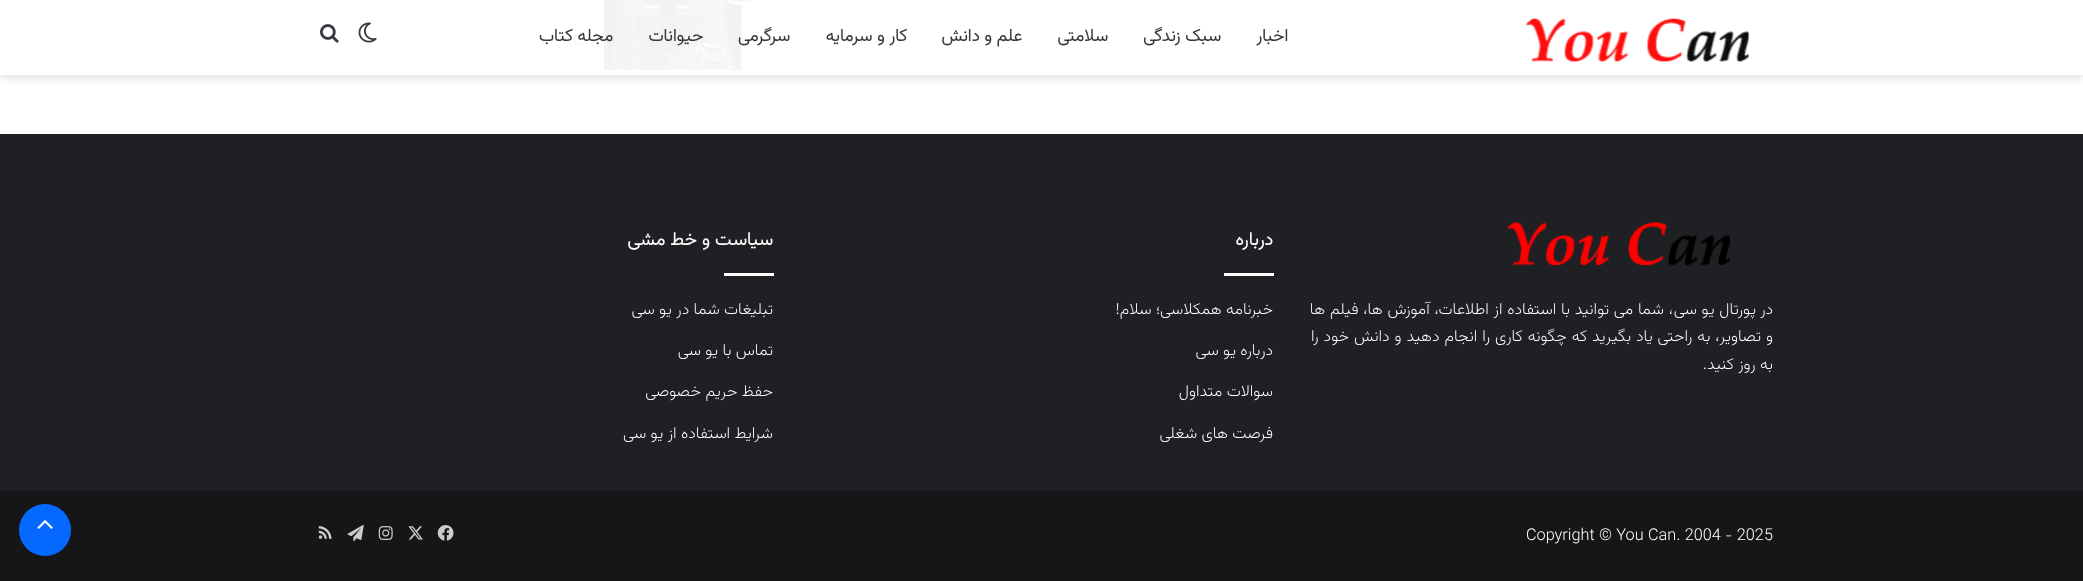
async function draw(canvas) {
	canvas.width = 2083;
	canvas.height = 581;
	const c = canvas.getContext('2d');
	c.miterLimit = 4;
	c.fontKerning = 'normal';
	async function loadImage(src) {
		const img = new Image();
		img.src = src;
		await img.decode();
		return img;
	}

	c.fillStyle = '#fff';
	c.fillRect(0, 0, 2083, 581);
	c.drawImage(await loadImage('img1.png'), 604, 0, 138, 70);
	c.fillStyle = '#f3f8ff';
	c.beginPath();
	c.roundRect(724.5, -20.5, 34, 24, 17);
	c.fill();
	c.strokeStyle = '#fff';
	c.lineWidth = 3;
	c.stroke();
	c.drawImage(await loadImage('img2.png'), 573, 33, 12, 12);
	c.save();
	c.beginPath();
	c.rect(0, 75, 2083, 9);
	c.clip();
	c.fillStyle = '#63636333';
	c.filter = 'blur(5px)';
	c.beginPath();
	c.rect(0, 3, 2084, 75);
	c.fill();
	c.filter = 'none';
	c.restore();
	c.drawImage(await loadImage('img3.png'), 1525, 18, 225, 44);
	c.direction = 'rtl';
	c.font = 'bold 17.5px Vazirmatn';
	c.fillStyle = '#37393e';
	for (const [text, x, y] of [
		['اخبار', 1288, 41],
		['سبک زندگی', 1221, 41],
		['سلامتی', 1108, 41],
		['علم و دانش', 1022, 41],
		['کار و سرمایه', 907, 41],
		['سرگرمی', 790, 41],
		['حیوانات', 703, 41],
		['مجله کتاب', 613, 41],
	]) {
		c.fillText(text, x, y);
	}
	c.drawImage(await loadImage('img4.png'), 358, 22, 19, 21);
	c.drawImage(await loadImage('img5.png'), 320, 24, 19, 19);
	c.fillStyle = '#1f2024';
	c.fillRect(0, 134, 2083, 357);
	c.drawImage(await loadImage('img6.png'), 1507, 222, 223, 44);
	c.font = '200 16.25px Vazirmatn';
	c.fillStyle = '#fff';
	c.fillText('در', 1773, 314);
	c.wordSpacing = '0.4px';
	c.fillText('پورتال یو سی', 1756, 314);
	c.fillText('، شما می توانید با استفاده از اطلاعات، آموزش ها، فیلم ها', 1673, 314);
	c.wordSpacing = '0.6px';
	c.fillText('و تصاویر، به راحتی یاد بگیرید که چگونه کاری را انجام دهید و دانش خود را', 1773, 341);
	c.wordSpacing = '0px';
	c.fillText('به روز کنید.', 1773, 369);
	c.font = 'bold 18.75px Vazirmatn';
	c.fillText('درباره', 1273, 245);
	c.fillStyle = '#fdfdfd';
	c.fillRect(1224, 273, 50, 3);
	c.font = '200 16.25px Vazirmatn';
	c.fillStyle = '#fff';
	for (const [text, x, y] of [
		['خبرنامه همکلاسی؛ سلام!', 1273, 314],
		['درباره یو سی', 1273, 355],
		['سوالات متداول', 1273, 396],
		['فرصت های شغلی', 1273, 438],
	]) {
		c.fillText(text, x, y);
	}
	c.font = 'bold 18.75px Vazirmatn';
	c.fillText('سیاست و خط مشی', 773, 245);
	c.fillStyle = '#fdfdfd';
	c.fillRect(724, 273, 50, 3);
	c.font = '200 16.25px Vazirmatn';
	c.fillStyle = '#fff';
	for (const [text, x, y] of [
		['تبلیغات شما در یو سی', 773, 314],
		['تماس با یو سی', 773, 355],
		['حفظ حریم خصوصی', 773, 396],
		['شرایط استفاده از یو سی', 773, 438],
	]) {
		c.fillText(text, x, y);
	}
	c.fillStyle = '#161619';
	c.fillRect(0, 491, 2083, 90);
	c.direction = 'ltr';
	c.fillStyle = '#fff';
	c.fillText('Copyright © You Can. 2004 - 2025', 1526, 540);
	c.drawImage(await loadImage('img7.png'), 437, 525, 17, 16);
	c.drawImage(await loadImage('img8.png'), 408, 526, 15, 14);
	c.drawImage(await loadImage('img9.png'), 378, 526, 15, 14);
	c.drawImage(await loadImage('img10.png'), 347, 524, 17, 18);
	c.drawImage(await loadImage('img11.png'), 318, 526, 14, 13);
	c.fillStyle = '#0669ff';
	c.beginPath();
	c.arc(45, 530, 26, 0, 2 * Math.PI);
	c.fill();
	c.drawImage(await loadImage('img12.png'), 37, 520, 16, 9);
}

draw(document.querySelector('canvas'));
